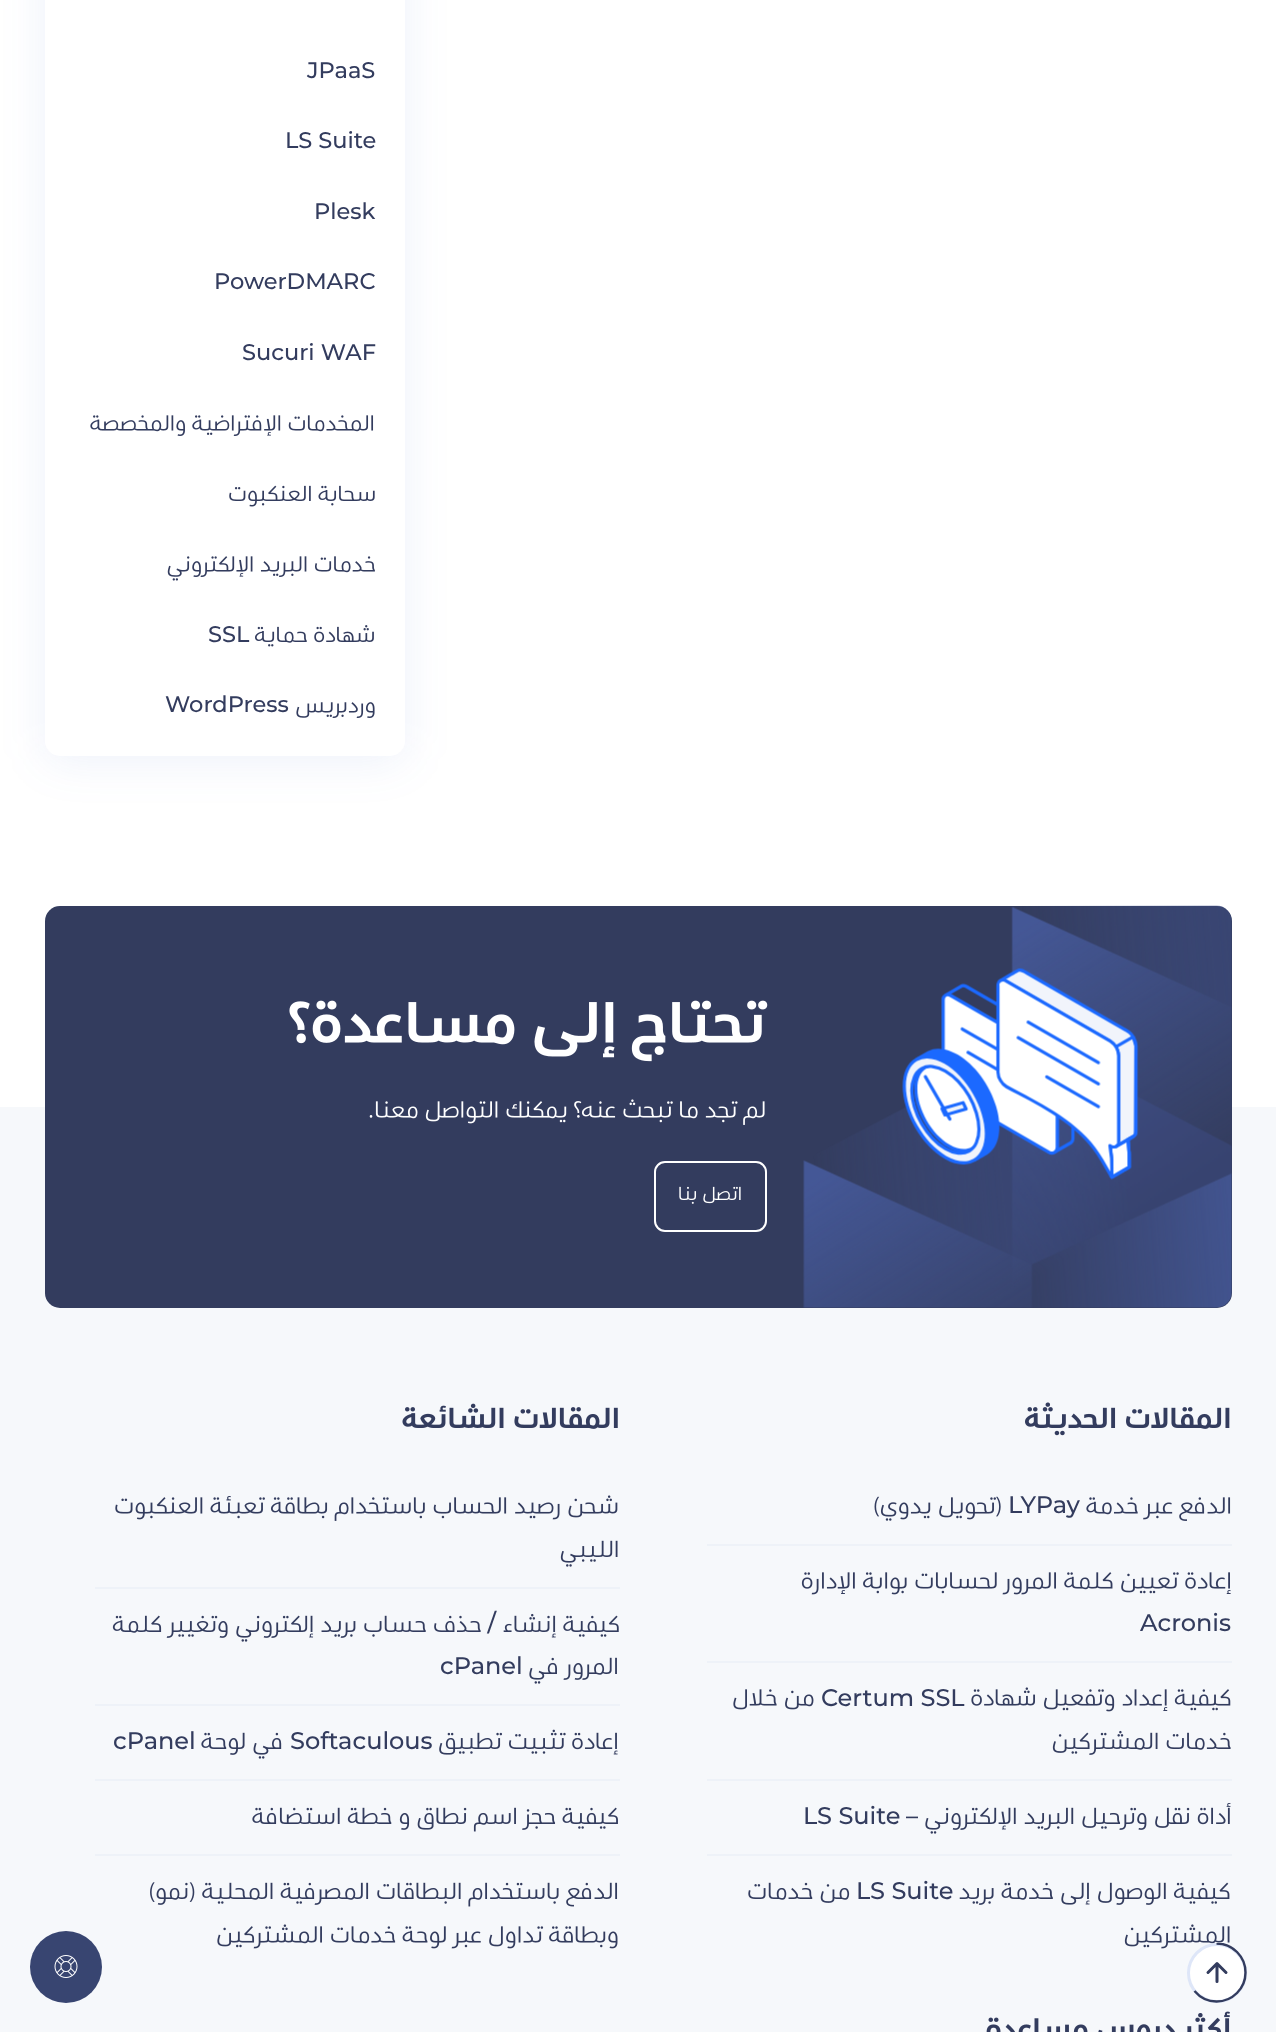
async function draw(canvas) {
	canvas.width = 1276;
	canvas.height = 2032;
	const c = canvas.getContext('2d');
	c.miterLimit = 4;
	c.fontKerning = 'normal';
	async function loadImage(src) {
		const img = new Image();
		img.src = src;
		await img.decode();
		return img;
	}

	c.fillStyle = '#fff';
	c.fillRect(0, 0, 1276, 2032);
	c.fillStyle = '#3566c817';
	c.filter = 'blur(22.5px)';
	c.beginPath();
	c.roundRect(45, -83, 360, 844, 15);
	c.fill();
	c.filter = 'none';
	c.fillStyle = '#fff';
	c.beginPath();
	c.roundRect(45, -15, 360, 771, 15);
	c.fill();
	c.font = '100 22.5px Montserrat';
	c.fillStyle = '#333c5e';
	for (const [text, x, y] of [
		['JPaaS', 307, 78],
		['LS Suite', 285, 148],
		['Plesk', 314, 219],
		['PowerDMARC', 214, 289],
		['Sucuri WAF', 242, 360],
	]) {
		c.fillText(text, x, y);
	}
	c.drawImage(await loadImage('img1.png'), 90, 415, 284, 21);
	c.drawImage(await loadImage('img2.png'), 229, 485, 146, 22);
	c.drawImage(await loadImage('img3.png'), 167, 556, 208, 25);
	c.fillText('SSL', 208, 642);
	c.drawImage(await loadImage('img4.png'), 255, 625, 119, 22);
	c.fillText('WordPress', 165, 712);
	c.drawImage(await loadImage('img5.png'), 296, 702, 79, 16);
	c.fillStyle = '#f6f8fb';
	c.fillRect(0, 1107, 1276, 925);
	c.fillStyle = '#333c5e';
	c.beginPath();
	c.roundRect(45, 906, 1187, 402, 15);
	c.fill();
	c.drawImage(await loadImage('img6.png'), 803, 905, 429, 403);
	c.drawImage(await loadImage('img7.png'), 289, 1000, 479, 62);
	c.drawImage(await loadImage('img8.png'), 369, 1099, 396, 26);
	c.beginPath();
	c.roundRect(655, 1162, 111, 69, 10);
	c.strokeStyle = '#fff';
	c.lineWidth = 2;
	c.stroke();
	c.drawImage(await loadImage('img9.png'), 679, 1186, 62, 18);
	c.drawImage(await loadImage('img10.png'), 402, 1403, 216, 26);
	c.drawImage(await loadImage('img11.png'), 115, 1495, 503, 26);
	c.drawImage(await loadImage('img12.png'), 560, 1540, 58, 27);
	c.fillStyle = '#eef2f8';
	c.fillRect(95, 1587, 525, 2);
	c.drawImage(await loadImage('img13.png'), 112, 1615, 369, 27);
	c.direction = 'rtl';
	c.font = '100 24px Montserrat';
	c.fillStyle = '#333c5e';
	c.fillText('/', 496, 1631);
	c.drawImage(await loadImage('img14.png'), 503, 1613, 116, 25);
	c.direction = 'ltr';
	c.fillText('cPanel', 440, 1674);
	c.drawImage(await loadImage('img15.png'), 529, 1657, 88, 27);
	c.fillStyle = '#eef2f8';
	c.fillRect(95, 1704, 525, 2);
	c.fillStyle = '#333c5e';
	c.fillText('cPanel', 113, 1749);
	c.drawImage(await loadImage('img16.png'), 201, 1732, 81, 27);
	c.fillText('Softaculous', 290, 1749);
	c.drawImage(await loadImage('img17.png'), 439, 1729, 179, 26);
	c.fillStyle = '#eef2f8';
	c.fillRect(95, 1779, 525, 2);
	c.drawImage(await loadImage('img18.png'), 252, 1807, 366, 25);
	c.fillRect(95, 1854, 525, 2);
	c.drawImage(await loadImage('img19.png'), 150, 1882, 468, 25);
	c.drawImage(await loadImage('img20.png'), 217, 1924, 401, 25);
	c.drawImage(await loadImage('img21.png'), 1025, 1402, 205, 34);
	c.drawImage(await loadImage('img22.png'), 874, 1496, 127, 25);
	c.fillStyle = '#333c5e';
	c.fillText('LYPay', 1008, 1513);
	c.drawImage(await loadImage('img23.png'), 1086, 1497, 145, 24);
	c.fillStyle = '#eef2f8';
	c.fillRect(707, 1544, 525, 2);
	c.drawImage(await loadImage('img24.png'), 801, 1572, 430, 23);
	c.fillStyle = '#333c5e';
	c.fillText('Acronis', 1140, 1631);
	c.fillStyle = '#eef2f8';
	c.fillRect(707, 1661, 525, 2);
	c.drawImage(await loadImage('img25.png'), 733, 1689, 81, 21);
	c.fillStyle = '#333c5e';
	c.fillText('Certum SSL', 821, 1706);
	c.drawImage(await loadImage('img26.png'), 971, 1687, 260, 25);
	c.drawImage(await loadImage('img27.png'), 1052, 1730, 179, 25);
	c.fillStyle = '#eef2f8';
	c.fillRect(707, 1779, 525, 2);
	c.fillStyle = '#333c5e';
	c.fillText('LS Suite', 803, 1824);
	c.direction = 'rtl';
	c.fillText('–', 918, 1824);
	c.drawImage(await loadImage('img28.png'), 925, 1803, 306, 31);
	c.fillStyle = '#eef2f8';
	c.fillRect(707, 1854, 525, 2);
	c.drawImage(await loadImage('img29.png'), 748, 1882, 102, 21);
	c.direction = 'ltr';
	c.fillStyle = '#333c5e';
	c.fillText('LS Suite', 856, 1899);
	c.drawImage(await loadImage('img30.png'), 959, 1882, 271, 23);
	c.drawImage(await loadImage('img31.png'), 1124, 1924, 106, 25);
	c.drawImage(await loadImage('img32.png'), 986, 2011, 244, 21);
	c.fillStyle = '#384571';
	c.beginPath();
	c.arc(66, 1967, 36, 0, 2 * Math.PI);
	c.fill();
	c.drawImage(await loadImage('img33.png'), 54, 1955, 24, 23);
	c.fillStyle = '#fff';
	c.beginPath();
	c.arc(1217, 1973, 28.5, 0, 2 * Math.PI);
	c.fill();
	c.strokeStyle = '#dee6f8';
	c.lineWidth = 3;
	c.stroke();
	c.save();
	c.beginPath();
	c.rect(1187, 1943, 60, 60);
	c.clip();
	c.beginPath();
	c.moveTo(1216.5, 1943.5);
	c.bezierCurveTo(1232.5, 1943.5, 1245.5, 1956.5, 1245.5, 1972.5);
	c.bezierCurveTo(1245.5, 1988.5, 1232.5, 2001.5, 1216.5, 2001.5);
	c.bezierCurveTo(1207.5, 2001.5, 1200, 1997.5, 1194.5, 1991);
	c.strokeStyle = '#333c5e';
	c.lineWidth = 2.4;
	c.stroke();
	c.restore();
	c.beginPath();
	c.moveTo(1226, 1972.5);
	c.lineTo(1217, 1963.5);
	c.lineTo(1208, 1972.5);
	c.moveTo(1217, 1981.5);
	c.lineTo(1217, 1963.5);
	c.strokeStyle = '#333c5e';
	c.lineCap = 'round';
	c.lineJoin = 'round';
	c.stroke();
}

draw(document.querySelector('canvas'));
